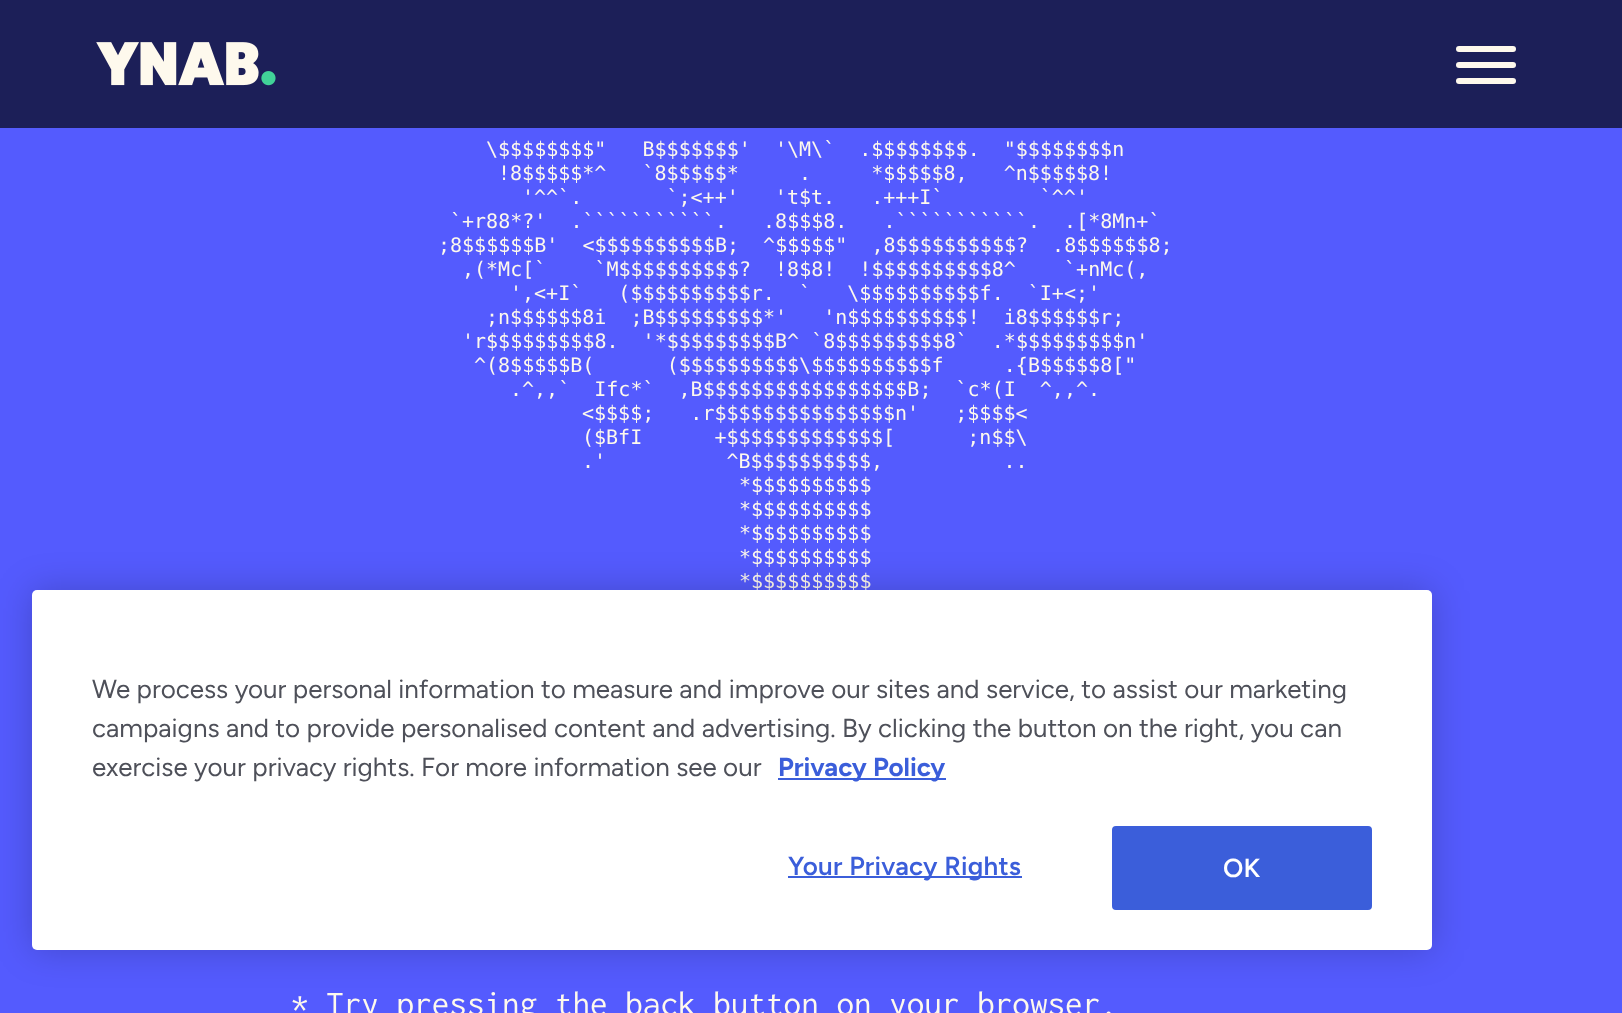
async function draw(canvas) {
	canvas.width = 1622;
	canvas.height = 1013;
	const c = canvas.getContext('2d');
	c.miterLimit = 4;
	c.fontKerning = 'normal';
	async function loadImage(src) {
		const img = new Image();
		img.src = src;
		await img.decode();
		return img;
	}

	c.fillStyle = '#545bfe';
	c.fillRect(0, 0, 1622, 1013);
	c.fillStyle = '#1c1f58';
	c.fillRect(0, 0, 1622, 128);
	c.drawImage(await loadImage('img1.png'), 96, 42, 180, 44);
	c.fillStyle = '#fef9ed';
	c.beginPath();
	c.roundRect(1456, 46, 60, 6, 3);
	c.fill();
	c.beginPath();
	c.roundRect(1456, 62, 60, 6, 3);
	c.fill();
	c.beginPath();
	c.roundRect(1456, 78, 60, 6, 3);
	c.fill();
	c.font = '20px DejaVu Sans Mono';
	for (const [text, x, y] of [
		['\\$$$$$$$$"   B$$$$$$$\'  \'\\M\\`  .$$$$$$$$.  "$$$$$$$$n', 486, 156],
		['!8$$$$$*^   `8$$$$$*     .     *$$$$$8,   ^n$$$$$8!', 498, 180],
		['\'^^`.       `;<++\'   \'t$t.   .+++I`        `^^\'', 522, 204],
		['`+r88*?\'  .```````````.   .8$$$8.   .```````````.  .[*8Mn+`', 450, 228],
		[';8$$$$$$B\'  <$$$$$$$$$$B;  ^$$$$$"  ,8$$$$$$$$$$?  .8$$$$$$8;', 438, 252],
		[',(*Mc[`    `M$$$$$$$$$$?  !8$8!  !$$$$$$$$$$8^    `+nMc(,', 462, 276],
		['\',<+I`   ($$$$$$$$$$r.  `   \\$$$$$$$$$$f.  `I+<;\'', 510, 300],
		[';n$$$$$$8i  ;B$$$$$$$$$*\'   \'n$$$$$$$$$$!  i8$$$$$$r;', 486, 324],
		['\'r$$$$$$$$$8.  \'*$$$$$$$$$B^ `8$$$$$$$$$8`  .*$$$$$$$$$n\'', 462, 348],
		['^(8$$$$$B(      ($$$$$$$$$$\\$$$$$$$$$$f     .{B$$$$$8["', 474, 372],
		['.^,,`  Ifc*`  ,B$$$$$$$$$$$$$$$$$B;  `c*(I  ^,,^.', 510, 396],
		['<$$$$;   .r$$$$$$$$$$$$$$$n\'   ;$$$$<', 582, 420],
		['($BfI      +$$$$$$$$$$$$$[      ;n$$\\', 582, 444],
		['.\'          ^B$$$$$$$$$$,          ..', 582, 468],
		['*$$$$$$$$$$', 739, 492],
		['*$$$$$$$$$$', 739, 516],
		['*$$$$$$$$$$', 739, 540],
		['*$$$$$$$$$$', 739, 564],
		['*$$$$$$$$$$', 739, 588],
	]) {
		c.fillText(text, x, y);
	}
	c.font = '35.2px Inconsolata';
	c.fillText('* Try pressing the back button on your browser.', 291, 1015);
	c.fillStyle = '#00000033';
	c.filter = 'blur(18px)';
	c.beginPath();
	c.roundRect(32, 590, 1400, 360, 5);
	c.fill();
	c.filter = 'none';
	c.fillStyle = '#fff';
	c.beginPath();
	c.roundRect(32, 590, 1400, 360, 5);
	c.fill();
	c.font = '26px Figtree';
	c.fillStyle = '#4e5059';
	for (const [text, x, y] of [
		['We process your personal information to measure and improve our sites and service, to assist our marketing', 92, 698],
		['campaigns and to provide personalised content and advertising. By clicking the button on the right, you can', 92, 737],
		['exercise your privacy rights. For more information see our', 92, 776],
	]) {
		c.fillText(text, x, y);
	}
	c.fillStyle = '#3b5eda';
	c.fillRect(778, 778, 168, 2);
	c.font = 'bold 26px Figtree';
	c.fillText('Privacy Policy', 778, 776);
	c.fillRect(788, 876, 234, 2);
	c.letterSpacing = '0.25px';
	c.font = '600 26px Figtree';
	c.fillText('Your Privacy Rights', 788, 875);
	c.beginPath();
	c.roundRect(1113, 827, 258, 82, 3);
	c.fill();
	c.strokeStyle = '#3b5eda';
	c.lineWidth = 2;
	c.stroke();
	c.fillStyle = '#fff';
	c.fillText('OK', 1223, 877);
}

draw(document.querySelector('canvas'));
